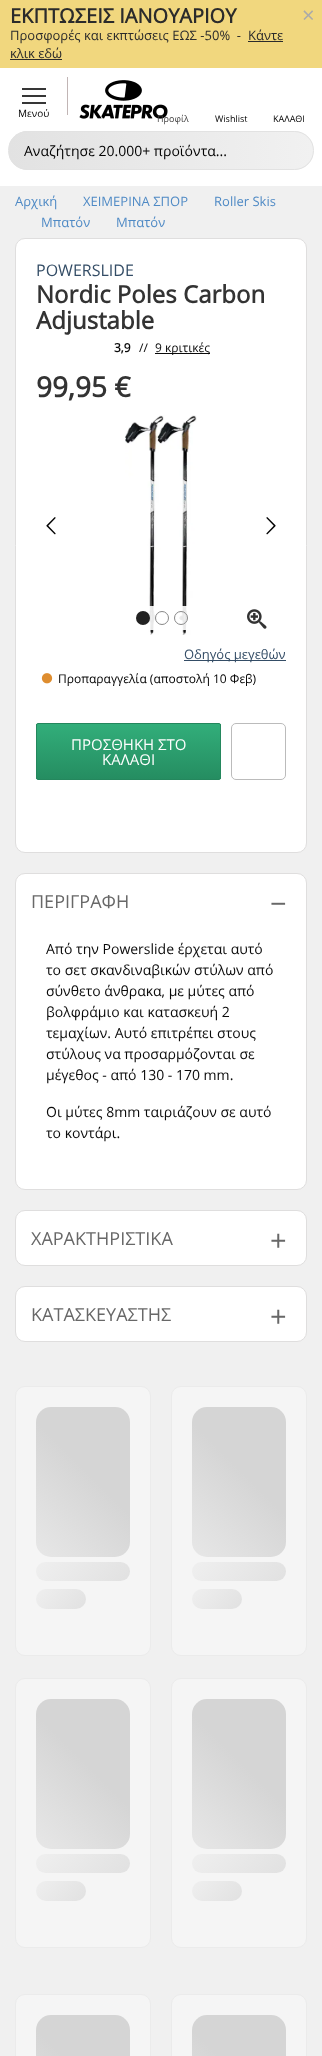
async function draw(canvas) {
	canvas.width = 322;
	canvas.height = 2056;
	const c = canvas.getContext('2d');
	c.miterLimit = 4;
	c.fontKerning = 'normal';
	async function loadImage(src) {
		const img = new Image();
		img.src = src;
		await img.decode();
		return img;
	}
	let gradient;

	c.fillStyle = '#f1d77e';
	c.fillRect(0, 0, 322, 2056);
	c.font = 'bold 20px Open Sans';
	c.fillStyle = '#2b2b2b';
	c.fillText('ΕΚΠΤΩΣΕΙΣ ΙΑΝΟΥΑΡΙΟΥ', 10, 23);
	c.font = '13px Open Sans';
	c.fillText('Προσφορές και εκπτώσεις ΕΩΣ -50%  -', 10, 40);
	c.fillText('Κάντε', 248, 40);
	c.fillRect(248, 41, 35, 1);
	c.fillText('κλικ εδώ', 10, 58);
	c.fillRect(10, 59, 52, 1);
	c.font = '22px Open Sans';
	c.fillStyle = '#aaa';
	c.fillText('×', 302, 23);
	for (const [x, y, w, h, color] of [
		[0, 68, 322, 118, '#fff'],
		[67, 77, 1, 38, '#c1b5b5'],
		[22, 88, 24, 2, '#363636'],
		[22, 95, 24, 2, '#363636'],
		[22, 102, 24, 2, '#363636'],
	]) {
		c.fillStyle = color;
		c.fillRect(x, y, w, h);
	}
	c.font = '10px Open Sans';
	c.fillStyle = '#020202';
	c.fillText('Μενού', 18, 117);
	c.drawImage(await loadImage('img1.png'), 79, 80, 89, 39);
	c.font = '9px Open Sans';
	c.fillStyle = '#444343';
	c.fillText('Προφίλ', 157, 122);
	c.fillStyle = '#020202';
	c.fillText('Wishlist', 215, 122);
	c.fillText('ΚΑΛΑΘΙ', 273, 122);
	c.save();
	c.beginPath();
	c.roundRect(8, 131, 306, 39, 19.5);
	c.clip();
	gradient = c.createLinearGradient(9, 151, 313, 151);
	gradient.addColorStop(0, '#e2e2e2');
	gradient.addColorStop(1, '#f1f1f1');
	c.fillStyle = gradient;
	c.fillRect(9, 131, 304, 39);
	c.restore();
	c.beginPath();
	c.roundRect(8.5, 131.5, 305, 38, 19);
	c.strokeStyle = '#e2e2e2';
	c.stroke();
	c.font = '14px Open Sans';
	c.fillText('Αναζήτησε 20.000+ προϊόντα...', 24, 156);
	c.fillStyle = '#f0f0f0';
	c.fillRect(0, 186, 322, 1870);
	c.font = '13px Open Sans';
	c.fillStyle = '#4f8ac5';
	for (const [text, x, y] of [
		['Αρχική', 15, 206],
		['ΧΕΙΜΕΡΙΝΑ ΣΠΟΡ', 83, 206],
		['Roller Skis', 214, 206],
		['Μπατόν', 41, 227],
		['Μπατόν', 116, 227],
	]) {
		c.fillText(text, x, y);
	}
	c.fillStyle = '#fff';
	c.beginPath();
	c.roundRect(15.5, 238.5, 291, 614, 9.5);
	c.fill();
	c.strokeStyle = '#dfdede';
	c.stroke();
	c.font = '16px Open Sans';
	c.fillStyle = '#344d66';
	c.fillText('POWERSLIDE', 36, 276);
	c.font = 'bold 24px Open Sans';
	c.fillStyle = '#333';
	c.fillText('Nordic Poles Carbon', 36, 303);
	c.fillText('Adjustable', 36, 329);
	c.font = 'bold 12px Open Sans';
	c.fillStyle = '#0a0a0a';
	c.fillText('3,9', 114, 352);
	c.font = '12px Open Sans';
	c.fillText('//', 139, 352);
	c.fillRect(155, 353, 55, 1);
	c.fillText('9 κριτικές', 155, 352);
	c.font = 'bold 28px Open Sans';
	c.fillStyle = '#333';
	c.fillText('99,95 €', 36, 397);
	c.drawImage(await loadImage('img2.png'), 46, 517, 10, 18);
	c.drawImage(await loadImage('img3.png'), 125, 415, 72, 220);
	c.drawImage(await loadImage('img4.png'), 266, 517, 10, 18);
	c.fillStyle = '#ffffffe6';
	c.beginPath();
	c.roundRect(123, 606, 77, 24, 10);
	c.fill();
	c.fillStyle = '#222';
	c.beginPath();
	c.arc(143, 618, 7, 0, 2 * Math.PI);
	c.fill();
	c.beginPath();
	c.arc(162, 618, 6.5, 0, 2 * Math.PI);
	c.strokeStyle = '#888';
	c.stroke();
	c.beginPath();
	c.arc(181, 618, 6.5, 0, 2 * Math.PI);
	c.stroke();
	c.drawImage(await loadImage('img5.png'), 247, 609, 20, 20);
	c.fillStyle = '#344d66';
	c.fillRect(184, 660, 102, 1);
	c.font = '13px Open Sans';
	c.fillText('Οδηγός μεγεθών', 184, 659);
	c.drawImage(await loadImage('img6.png'), 41, 673, 12, 11);
	c.font = '12px Open Sans';
	c.fillStyle = '#020202';
	c.fillText('Προπαραγγελία (αποστολή 10 Φεβ)', 58, 683);
	c.save();
	c.beginPath();
	c.roundRect(36, 723, 185, 57, 2);
	c.clip();
	gradient = c.createLinearGradient(129, 724, 129, 779);
	gradient.addColorStop(0, '#32ae7a');
	gradient.addColorStop(1, '#258d61');
	c.fillStyle = gradient;
	c.fillRect(36, 724, 185, 55);
	c.restore();
	c.beginPath();
	c.roundRect(36.5, 723.5, 184, 56, 1.5);
	c.strokeStyle = '#24875d';
	c.stroke();
	c.font = '15px Open Sans';
	c.fillStyle = '#fefefe';
	c.fillText('ΠΡΟΣΘΗΚΗ ΣΤΟ', 71, 750);
	c.fillText('ΚΑΛΑΘΙ', 102, 765);
	c.beginPath();
	c.roundRect(231.5, 723.5, 54, 56, 4.5);
	c.strokeStyle = '#bbb';
	c.stroke();
	c.fillStyle = '#fff';
	c.beginPath();
	c.roundRect(15.5, 873.5, 291, 316, 9.5);
	c.fill();
	c.strokeStyle = '#dfdede';
	c.stroke();
	c.font = '18px Open Sans';
	c.fillStyle = '#686868';
	c.fillText('ΠΕΡΙΓΡΑΦΗ', 31, 908);
	c.font = '29px Open Sans';
	c.fillText('−', 270, 914);
	c.font = '14px Open Sans';
	c.fillStyle = '#0a0a0a';
	for (const [text, x, y] of [
		['Από την Powerslide έρχεται αυτό', 46, 954],
		['το σετ σκανδιναβικών στύλων από', 46, 975],
		['σύνθετο άνθρακα, με μύτες από', 46, 996],
		['βολφράμιο και κατασκευή 2', 46, 1017],
		['τεμαχίων. Αυτό επιτρέπει στους', 46, 1038],
		['στύλους να προσαρμόζονται σε', 46, 1059],
		['μέγεθος - από 130 - 170 mm.', 46, 1080],
		['Οι μύτες 8mm ταιριάζουν σε αυτό', 46, 1117],
		['το κοντάρι.', 46, 1138],
	]) {
		c.fillText(text, x, y);
	}
	c.fillStyle = '#fff';
	c.beginPath();
	c.roundRect(15.5, 1210.5, 291, 55, 9.5);
	c.fill();
	c.stroke();
	c.font = '18px Open Sans';
	c.fillStyle = '#686868';
	c.fillText('ΧΑΡΑΚΤΗΡΙΣΤΙΚΑ', 31, 1245);
	c.font = '29px Open Sans';
	c.fillText('+', 270, 1251);
	c.fillStyle = '#fff';
	c.beginPath();
	c.roundRect(15.5, 1286.5, 291, 55, 9.5);
	c.fill();
	c.stroke();
	c.font = '18px Open Sans';
	c.fillStyle = '#686868';
	c.fillText('ΚΑΤΑΣΚΕΥΑΣΤΗΣ', 31, 1321);
	c.font = '29px Open Sans';
	c.fillText('+', 270, 1327);
	c.fillStyle = '#f5f5f5';
	c.beginPath();
	c.roundRect(15.5, 1386.5, 135, 269, 9.5);
	c.fill();
	c.strokeStyle = '#ebebeb';
	c.stroke();
	gradient = c.createLinearGradient(-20, 1951, 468, 1463);
	gradient.addColorStop(0.4, '#efefef');
	gradient.addColorStop(0.6, '#d5d5d5');
	c.fillStyle = gradient;
	c.beginPath();
	c.roundRect(36, 1407, 94, 150, 15);
	c.fill();
	gradient = c.createLinearGradient(52, 1544, 114, 1599);
	gradient.addColorStop(0, '#efefef');
	gradient.addColorStop(1, '#e1e1e1');
	c.fillStyle = gradient;
	c.beginPath();
	c.roundRect(36, 1562, 94, 19, 9.5);
	c.fill();
	gradient = c.createLinearGradient(42, 1582, 80, 1616);
	gradient.addColorStop(0, '#efefef');
	gradient.addColorStop(1, '#e1e1e1');
	c.fillStyle = gradient;
	c.beginPath();
	c.roundRect(36, 1589, 50, 20, 10);
	c.fill();
	c.fillStyle = '#f5f5f5';
	c.beginPath();
	c.roundRect(171.5, 1386.5, 135, 269, 9.5);
	c.fill();
	c.stroke();
	gradient = c.createLinearGradient(136, 1951, 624, 1463);
	gradient.addColorStop(0.4, '#efefef');
	gradient.addColorStop(0.6, '#d5d5d5');
	c.fillStyle = gradient;
	c.beginPath();
	c.roundRect(192, 1407, 94, 150, 15);
	c.fill();
	gradient = c.createLinearGradient(208, 1544, 270, 1599);
	gradient.addColorStop(0, '#efefef');
	gradient.addColorStop(1, '#e1e1e1');
	c.fillStyle = gradient;
	c.beginPath();
	c.roundRect(192, 1562, 94, 19, 9.5);
	c.fill();
	gradient = c.createLinearGradient(198, 1582, 236, 1616);
	gradient.addColorStop(0, '#efefef');
	gradient.addColorStop(1, '#e1e1e1');
	c.fillStyle = gradient;
	c.beginPath();
	c.roundRect(192, 1589, 50, 20, 10);
	c.fill();
	c.fillStyle = '#f5f5f5';
	c.beginPath();
	c.roundRect(15.5, 1678.5, 135, 269, 9.5);
	c.fill();
	c.stroke();
	gradient = c.createLinearGradient(-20, 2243, 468, 1755);
	gradient.addColorStop(0.4, '#efefef');
	gradient.addColorStop(0.6, '#d5d5d5');
	c.fillStyle = gradient;
	c.beginPath();
	c.roundRect(36, 1699, 94, 150, 15);
	c.fill();
	gradient = c.createLinearGradient(52, 1836, 114, 1891);
	gradient.addColorStop(0, '#efefef');
	gradient.addColorStop(1, '#e1e1e1');
	c.fillStyle = gradient;
	c.beginPath();
	c.roundRect(36, 1854, 94, 19, 9.5);
	c.fill();
	gradient = c.createLinearGradient(42, 1874, 80, 1908);
	gradient.addColorStop(0, '#efefef');
	gradient.addColorStop(1, '#e1e1e1');
	c.fillStyle = gradient;
	c.beginPath();
	c.roundRect(36, 1881, 50, 20, 10);
	c.fill();
	c.fillStyle = '#f5f5f5';
	c.beginPath();
	c.roundRect(171.5, 1678.5, 135, 269, 9.5);
	c.fill();
	c.stroke();
	gradient = c.createLinearGradient(136, 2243, 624, 1755);
	gradient.addColorStop(0.4, '#efefef');
	gradient.addColorStop(0.6, '#d5d5d5');
	c.fillStyle = gradient;
	c.beginPath();
	c.roundRect(192, 1699, 94, 150, 15);
	c.fill();
	gradient = c.createLinearGradient(208, 1836, 270, 1891);
	gradient.addColorStop(0, '#efefef');
	gradient.addColorStop(1, '#e1e1e1');
	c.fillStyle = gradient;
	c.beginPath();
	c.roundRect(192, 1854, 94, 19, 9.5);
	c.fill();
	gradient = c.createLinearGradient(198, 1874, 236, 1908);
	gradient.addColorStop(0, '#efefef');
	gradient.addColorStop(1, '#e1e1e1');
	c.fillStyle = gradient;
	c.beginPath();
	c.roundRect(192, 1881, 50, 20, 10);
	c.fill();
	c.fillStyle = '#f5f5f5';
	c.beginPath();
	c.roundRect(15.5, 1994.5, 135, 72, 9.5);
	c.fill();
	c.stroke();
	gradient = c.createLinearGradient(-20, 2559, 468, 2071);
	gradient.addColorStop(0.4, '#efefef');
	gradient.addColorStop(0.6, '#d5d5d5');
	c.fillStyle = gradient;
	c.beginPath();
	c.roundRect(36, 2015, 94, 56, 15);
	c.fill();
	c.fillStyle = '#f5f5f5';
	c.beginPath();
	c.roundRect(171.5, 1994.5, 135, 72, 9.5);
	c.fill();
	c.stroke();
	gradient = c.createLinearGradient(136, 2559, 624, 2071);
	gradient.addColorStop(0.4, '#efefef');
	gradient.addColorStop(0.6, '#d5d5d5');
	c.fillStyle = gradient;
	c.beginPath();
	c.roundRect(192, 2015, 94, 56, 15);
	c.fill();
}

draw(document.querySelector('canvas'));
